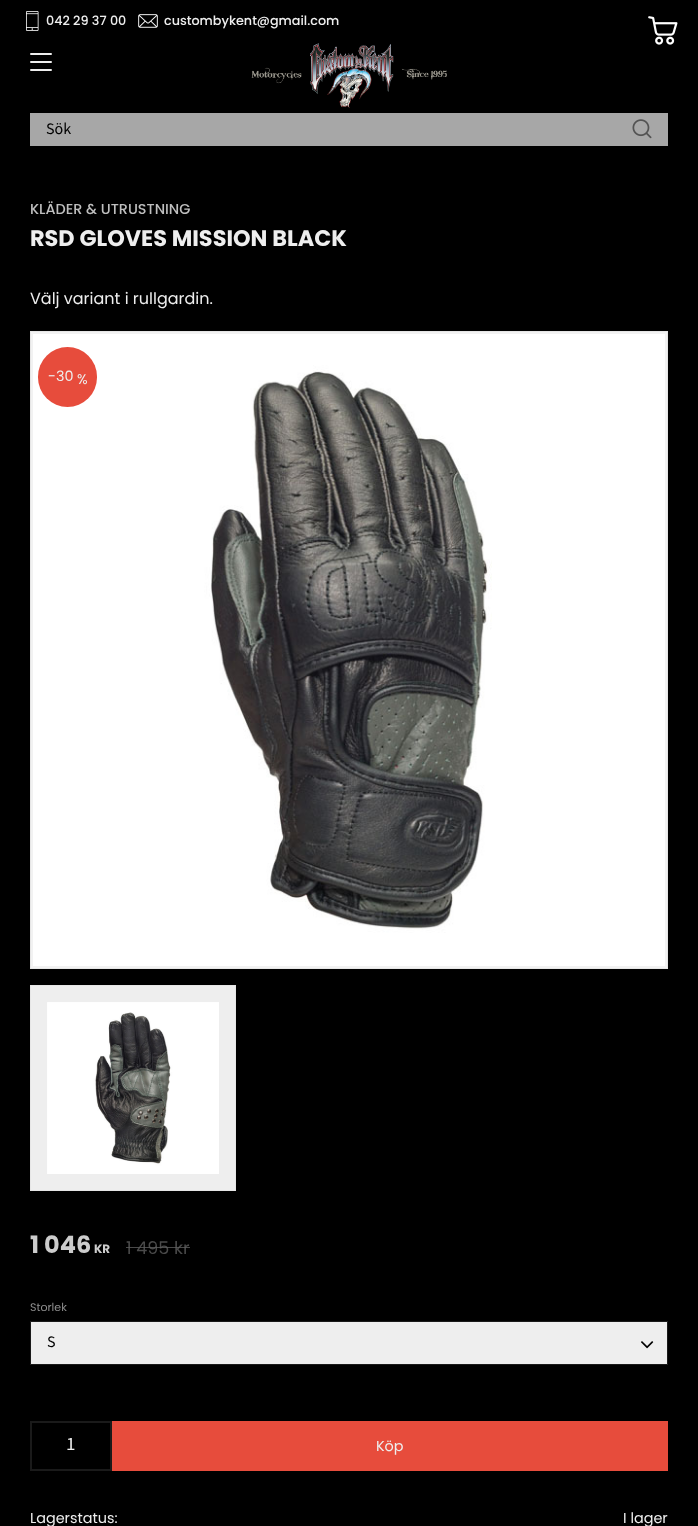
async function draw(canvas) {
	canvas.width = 698;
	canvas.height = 1526;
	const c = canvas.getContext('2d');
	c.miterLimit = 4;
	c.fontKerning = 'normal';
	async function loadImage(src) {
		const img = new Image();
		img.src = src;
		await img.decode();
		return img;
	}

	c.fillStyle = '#000';
	c.fillRect(0, 0, 698, 1526);
	c.fillStyle = '#eee';
	c.beginPath();
	c.roundRect(30, 61, 22, 2, 1);
	c.fill();
	c.beginPath();
	c.roundRect(30, 53, 22, 2, 1);
	c.fill();
	c.beginPath();
	c.roundRect(30, 69, 22, 2, 1);
	c.fill();
	c.drawImage(await loadImage('img1.png'), 26, 11, 13, 20);
	c.font = '500 12.75px Poppins';
	c.fillText('042 29 37 00', 46, 25);
	c.drawImage(await loadImage('img2.png'), 138, 14, 20, 14);
	c.fillText('custombykent@gmail.com', 164, 25);
	c.drawImage(await loadImage('img3.png'), 648, 16, 30, 29);
	c.drawImage(await loadImage('img4.png'), 251, 43, 196, 65);
	c.fillStyle = '#a7a7a7';
	c.fillRect(30, 113, 638, 33);
	c.font = '16px Source Sans Pro';
	c.fillStyle = '#000';
	c.fillText('Sök', 46, 134);
	c.drawImage(await loadImage('img5.png'), 632, 119, 20, 20);
	c.font = '500 14.4px Poppins';
	c.fillStyle = '#bebebe';
	c.fillText('KLÄDER & UTRUSTNING', 30, 214);
	c.font = 'bold 22.4px Poppins';
	c.fillStyle = '#eee';
	c.fillText('RSD GLOVES MISSION BLACK', 30, 246);
	c.font = '16px Poppins';
	c.fillText('Välj variant i rullgardin.', 30, 304);
	c.strokeStyle = '#e6e6e6';
	c.strokeRect(30.5, 331.5, 637, 637);
	c.strokeStyle = '#f2f2f2';
	c.lineWidth = 2;
	c.strokeRect(32, 333, 634, 634);
	c.drawImage(await loadImage('img6.png'), 33, 334, 632, 632);
	c.fillStyle = '#e74c3c';
	c.beginPath();
	c.roundRect(38, 347, 59, 60, 29.5);
	c.fill();
	c.font = '14.4px Poppins';
	c.fillStyle = '#eee';
	c.fillText('-30', 48, 381);
	c.font = '14px Poppins';
	c.fillText('%', 77, 384);
	c.strokeStyle = '#e6e6e6';
	c.lineWidth = 1;
	c.strokeRect(30.5, 985.5, 205, 205);
	c.fillRect(31, 986, 204, 204);
	c.drawImage(await loadImage('img7.png'), 47, 1002, 172, 172);
	c.font = 'bold 24px Poppins';
	c.fillStyle = '#ccc';
	c.fillText('1 046', 30, 1253);
	c.font = 'bold 12px Poppins';
	c.fillText('KR', 94, 1253);
	c.font = '17.5px Poppins';
	c.fillStyle = '#4a4a4a';
	c.fillText('1 495 kr', 126, 1254);
	c.fillStyle = '#5c5c5ccc';
	c.fillRect(126, 1247, 44, 1);
	c.fillRect(170, 1247, 20, 1);
	c.font = '11px Poppins';
	c.fillStyle = '#8f8f8f';
	c.fillText('Storlek', 30, 1311);
	c.fillStyle = '#eee';
	c.beginPath();
	c.rect(30.5, 1321.5, 637, 43);
	c.fill();
	c.strokeStyle = '#1a1a1a';
	c.stroke();
	c.font = '16px Source Sans Pro';
	c.fillStyle = '#000';
	c.fillText('S', 47, 1347);
	c.drawImage(await loadImage('img8.png'), 641, 1341, 13, 8);
	c.lineWidth = 2;
	c.strokeRect(31, 1422, 80, 48);
	c.font = '19px Source Sans Pro';
	c.fillStyle = '#eee';
	c.fillText('1', 66, 1450);
	c.fillStyle = '#e74c3c';
	c.fillRect(112, 1421, 556, 50);
	c.font = '14.4px Poppins';
	c.fillStyle = '#eee';
	for (const [text, x, y] of [
		['Köp', 376, 1451],
		['Lagerstatus:', 30, 1523],
		['I lager', 623, 1523],
	]) {
		c.fillText(text, x, y);
	}
}

draw(document.querySelector('canvas'));
